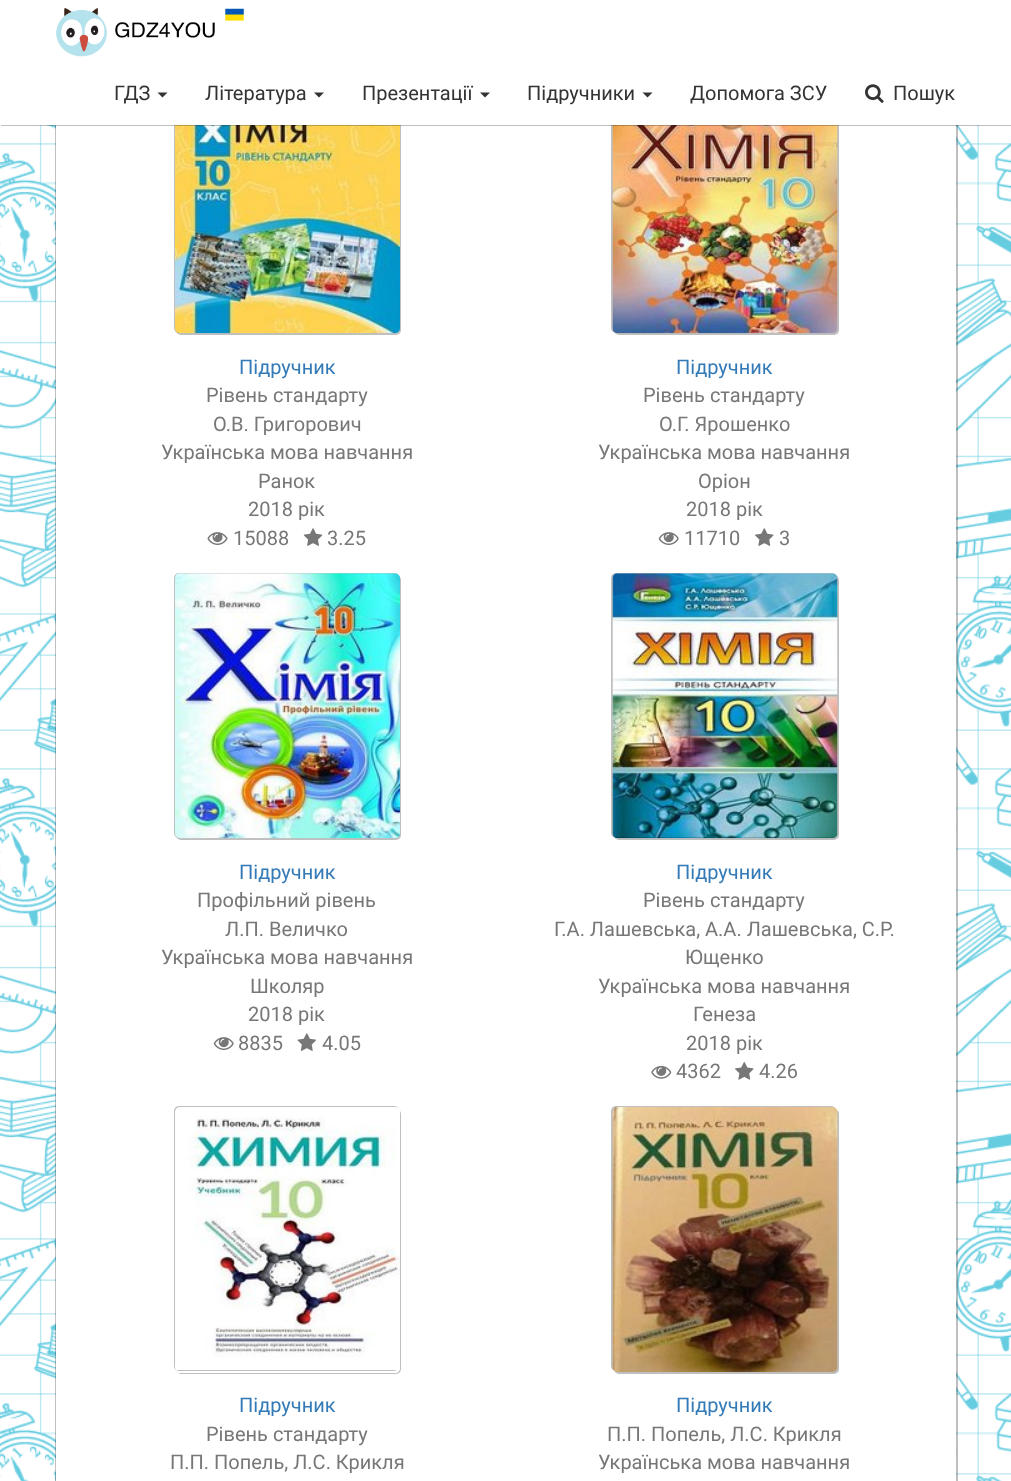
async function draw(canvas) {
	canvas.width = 1011;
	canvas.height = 1481;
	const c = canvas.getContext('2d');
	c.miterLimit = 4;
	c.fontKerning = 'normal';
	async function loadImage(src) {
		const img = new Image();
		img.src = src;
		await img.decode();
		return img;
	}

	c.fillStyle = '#fff';
	c.fillRect(0, 0, 1011, 1481);
	c.drawImage(await loadImage('img1.png'), 0, 125, 1011, 1356);
	c.fillStyle = '#00000040';
	c.filter = 'blur(0.5px)';
	c.beginPath();
	c.rect(55, -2, 900, 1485);
	c.fill();
	c.filter = 'none';
	c.filter = 'blur(0.5px)';
	c.beginPath();
	c.rect(58, -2, 900, 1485);
	c.fill();
	c.filter = 'none';
	c.fillStyle = '#fff';
	c.fillRect(56, 125, 900, 1356);
	c.fillStyle = '#00000040';
	c.filter = 'blur(0.5px)';
	c.beginPath();
	c.roundRect(174, 68, 225, 265, 5);
	c.fill();
	c.filter = 'none';
	c.filter = 'blur(0.5px)';
	c.beginPath();
	c.roundRect(176, 70, 225, 265, 5);
	c.fill();
	c.filter = 'none';
	c.drawImage(await loadImage('img4.png'), 175, 125, 225, 209);
	c.filter = 'blur(0.5px)';
	c.beginPath();
	c.roundRect(611, 68, 225, 265, 5);
	c.fill();
	c.filter = 'none';
	c.filter = 'blur(0.5px)';
	c.beginPath();
	c.roundRect(614, 70, 225, 265, 5);
	c.fill();
	c.filter = 'none';
	c.drawImage(await loadImage('img7.png'), 612, 125, 226, 209);
	c.filter = 'blur(0.5px)';
	c.beginPath();
	c.rect(1, 1, 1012, 125);
	c.fill();
	c.filter = 'none';
	c.fillStyle = '#fff';
	c.fillRect(0, 0, 1011, 125);
	c.drawImage(await loadImage('img2.png'), 56, 8, 188, 49);
	c.font = '20px Roboto';
	c.fillStyle = '#333';
	c.fillText('ГДЗ', 114, 100);
	c.beginPath();
	c.moveTo(157.5, 92.5);
	c.lineTo(167.5, 92.5);
	c.lineTo(162.5, 97.5);
	c.closePath();
	c.fill();
	c.fillText('Література', 205, 100);
	c.beginPath();
	c.moveTo(314, 92.5);
	c.lineTo(324, 92.5);
	c.lineTo(319, 97.5);
	c.closePath();
	c.fill();
	c.fillText('Презентації', 362, 100);
	c.beginPath();
	c.moveTo(480, 92.5);
	c.lineTo(490, 92.5);
	c.lineTo(485, 97.5);
	c.closePath();
	c.fill();
	c.fillText('Підручники', 527, 100);
	c.beginPath();
	c.moveTo(642.5, 92.5);
	c.lineTo(652.5, 92.5);
	c.lineTo(647.5, 97.5);
	c.closePath();
	c.fill();
	c.fillText('Допомога ЗСУ', 690, 100);
	c.drawImage(await loadImage('img3.png'), 865, 84, 19, 19);
	c.fillText('Пошук', 893, 100);
	c.fillStyle = '#337ab7';
	c.fillText('Підручник', 239, 374);
	c.fillStyle = '#777';
	for (const [text, x, y] of [
		['Рівень стандарту', 206, 402],
		['О.В. Григорович', 213, 431],
		['Українська мова навчання', 161, 459],
		['Ранок', 258, 488],
		['2018 рік', 248, 516],
	]) {
		c.fillText(text, x, y);
	}
	c.drawImage(await loadImage('img5.png'), 207, 532, 21, 13);
	c.fillText('15088', 233, 545);
	c.drawImage(await loadImage('img6.png'), 303, 528, 20, 18);
	c.fillText('3.25', 327, 545);
	c.fillStyle = '#337ab7';
	c.fillText('Підручник', 676, 374);
	c.fillStyle = '#777';
	for (const [text, x, y] of [
		['Рівень стандарту', 643, 402],
		['О.Г. Ярошенко', 659, 431],
		['Українська мова навчання', 598, 459],
		['Оріон', 698, 488],
		['2018 рік', 686, 516],
	]) {
		c.fillText(text, x, y);
	}
	c.drawImage(await loadImage('img8.png'), 658, 532, 21, 13);
	c.fillText('11710', 684, 545);
	c.drawImage(await loadImage('img9.png'), 755, 528, 19, 18);
	c.fillText('3', 779, 545);
	c.fillStyle = '#00000040';
	c.filter = 'blur(0.5px)';
	c.beginPath();
	c.roundRect(174, 573, 225, 265, 5);
	c.fill();
	c.filter = 'none';
	c.filter = 'blur(0.5px)';
	c.beginPath();
	c.roundRect(176, 575, 225, 265, 5);
	c.fill();
	c.filter = 'none';
	c.drawImage(await loadImage('img10.png'), 175, 573, 225, 266);
	c.fillStyle = '#337ab7';
	c.fillText('Підручник', 239, 879);
	c.fillStyle = '#777';
	for (const [text, x, y] of [
		['Профільний рівень', 197, 907],
		['Л.П. Величко', 225, 936],
		['Українська мова навчання', 161, 964],
		['Школяр', 250, 993],
		['2018 рік', 248, 1021],
	]) {
		c.fillText(text, x, y);
	}
	c.drawImage(await loadImage('img8.png'), 213, 1037, 21, 13);
	c.fillText('8835', 238, 1050);
	c.drawImage(await loadImage('img11.png'), 297, 1033, 19, 18);
	c.fillText('4.05', 322, 1050);
	c.fillStyle = '#00000040';
	c.filter = 'blur(0.5px)';
	c.beginPath();
	c.roundRect(611, 573, 225, 265, 5);
	c.fill();
	c.filter = 'none';
	c.filter = 'blur(0.5px)';
	c.beginPath();
	c.roundRect(614, 575, 225, 265, 5);
	c.fill();
	c.filter = 'none';
	c.drawImage(await loadImage('img12.png'), 612, 573, 226, 266);
	c.fillStyle = '#337ab7';
	c.fillText('Підручник', 676, 879);
	c.fillStyle = '#777';
	for (const [text, x, y] of [
		['Рівень стандарту', 643, 907],
		['Г.А. Лашевська, А.А. Лашевська, С.Р.', 554, 936],
		['Ющенко', 685, 964],
		['Українська мова навчання', 598, 993],
		['Генеза', 693, 1021],
		['2018 рік', 686, 1050],
	]) {
		c.fillText(text, x, y);
	}
	c.drawImage(await loadImage('img13.png'), 651, 1065, 21, 14);
	c.fillText('4362', 676, 1078);
	c.drawImage(await loadImage('img14.png'), 735, 1062, 19, 18);
	c.fillText('4.26', 759, 1078);
	c.fillStyle = '#00000040';
	c.filter = 'blur(0.5px)';
	c.beginPath();
	c.roundRect(174, 1106, 225, 265, 5);
	c.fill();
	c.filter = 'none';
	c.save();
	c.beginPath();
	c.moveTo(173, 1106);
	c.lineTo(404, 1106);
	c.lineTo(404, 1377);
	c.lineTo(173, 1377);
	c.closePath();
	c.moveTo(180, 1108);
	c.lineTo(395, 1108);
	c.bezierCurveTo(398, 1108, 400, 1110, 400, 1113);
	c.lineTo(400, 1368);
	c.bezierCurveTo(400, 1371, 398, 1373, 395, 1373);
	c.lineTo(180, 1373);
	c.bezierCurveTo(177, 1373, 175, 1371, 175, 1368);
	c.lineTo(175, 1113);
	c.bezierCurveTo(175, 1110, 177, 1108, 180, 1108);
	c.closePath();
	c.clip('evenodd');
	c.filter = 'blur(0.5px)';
	c.beginPath();
	c.roundRect(176, 1109, 225, 265, 5);
	c.fill();
	c.filter = 'none';
	c.restore();
	c.drawImage(await loadImage('img15.png'), 175, 1107, 225, 263);
	c.fillStyle = '#337ab7';
	c.fillText('Підручник', 239, 1412);
	c.fillStyle = '#777';
	c.fillText('Рівень стандарту', 206, 1441);
	c.fillText('П.П. Попель, Л.С. Крикля', 170, 1469);
	c.fillStyle = '#00000040';
	c.filter = 'blur(0.5px)';
	c.beginPath();
	c.roundRect(611, 1106, 225, 265, 5);
	c.fill();
	c.filter = 'none';
	c.filter = 'blur(0.5px)';
	c.beginPath();
	c.roundRect(614, 1109, 225, 265, 5);
	c.fill();
	c.filter = 'none';
	c.drawImage(await loadImage('img16.png'), 612, 1107, 226, 265);
	c.fillStyle = '#337ab7';
	c.fillText('Підручник', 676, 1412);
	c.fillStyle = '#777';
	c.fillText('П.П. Попель, Л.С. Крикля', 607, 1441);
	c.fillText('Українська мова навчання', 598, 1469);
}

draw(document.querySelector('canvas'));
